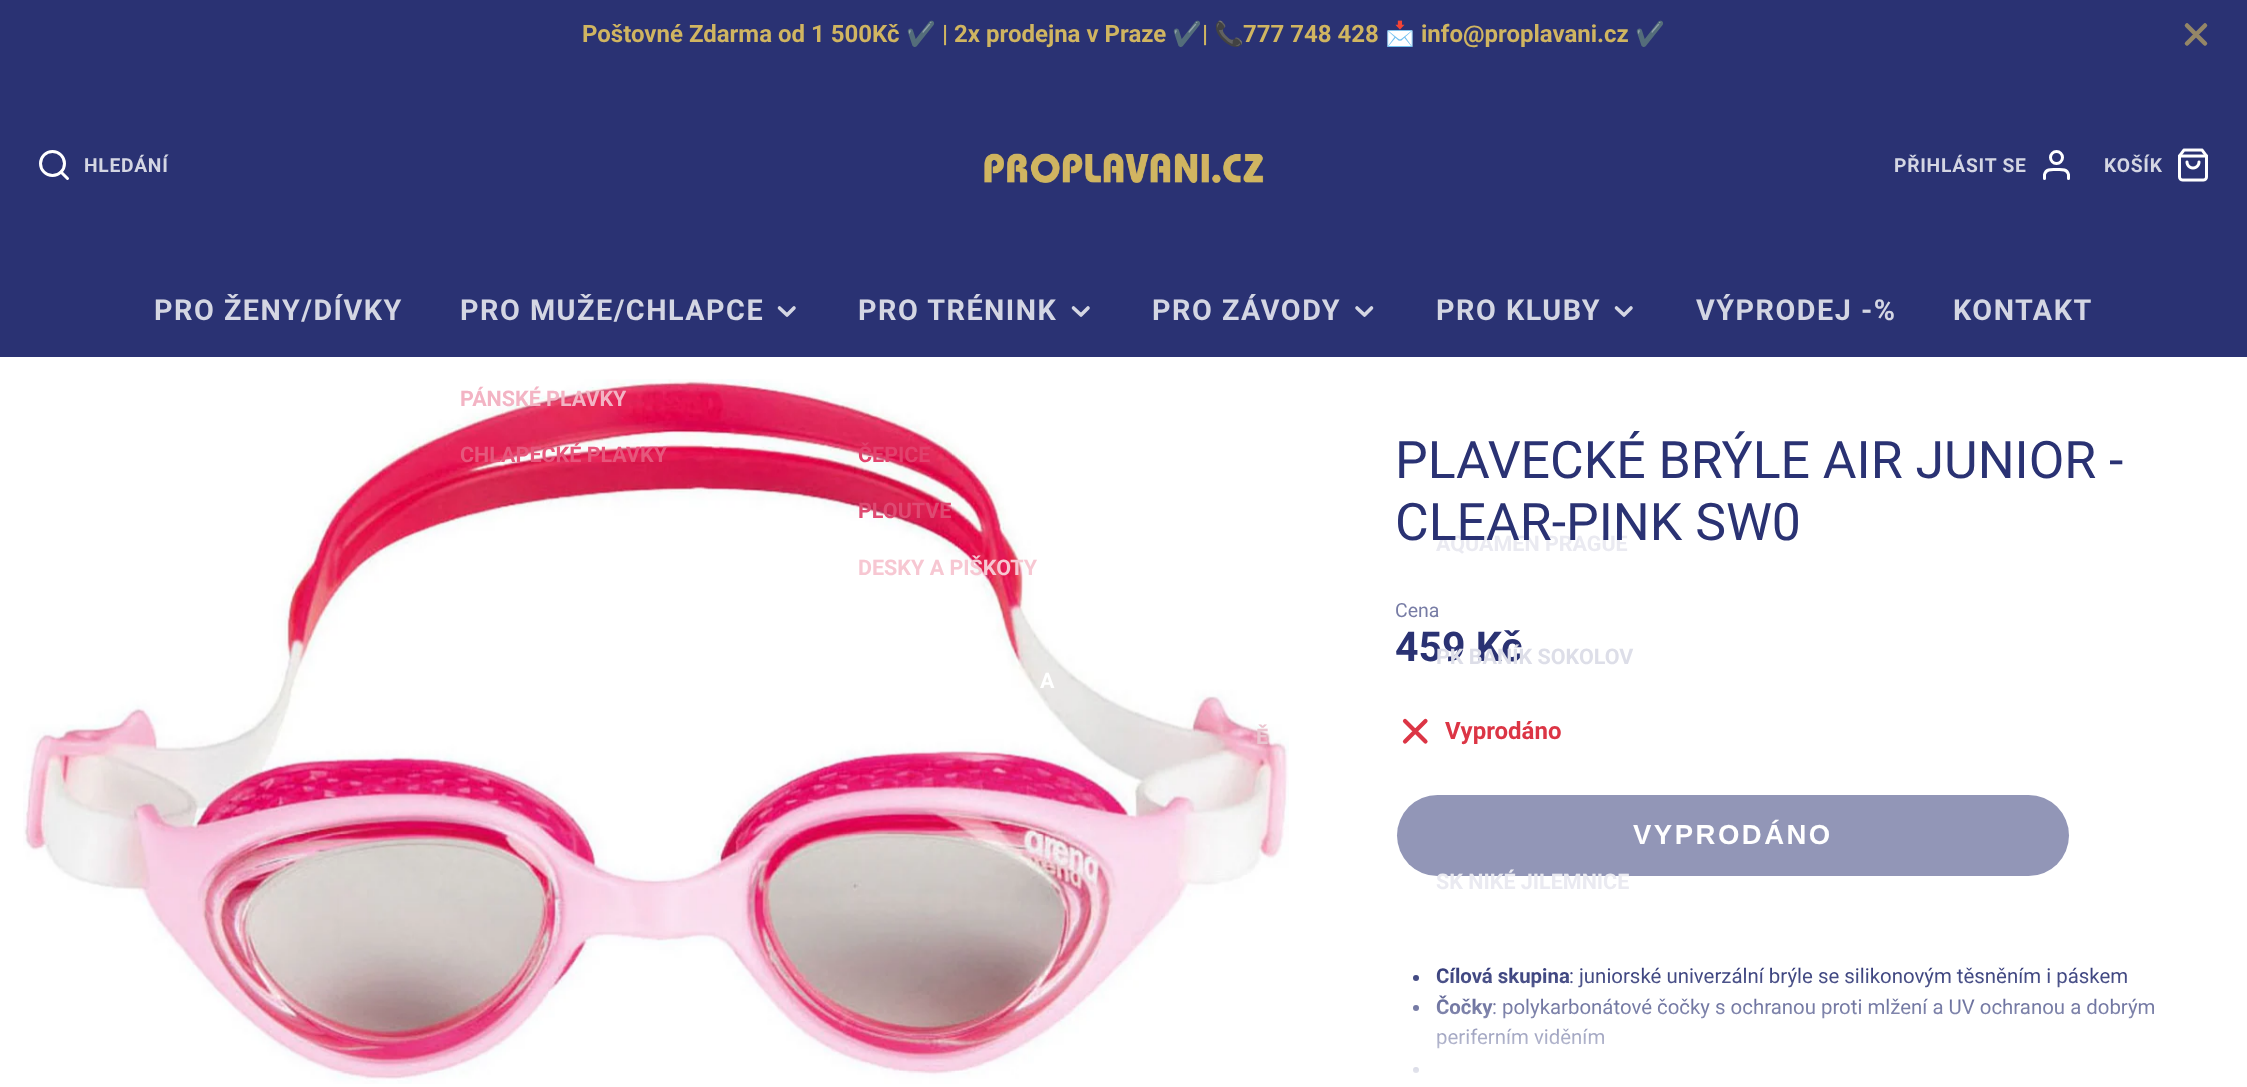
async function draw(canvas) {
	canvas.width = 2247;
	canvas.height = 1087;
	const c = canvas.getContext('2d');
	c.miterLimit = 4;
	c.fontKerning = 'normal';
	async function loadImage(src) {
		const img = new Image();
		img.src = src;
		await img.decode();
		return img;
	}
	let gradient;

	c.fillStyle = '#fff';
	c.fillRect(0, 0, 2247, 1087);
	c.fillStyle = '#2a3273';
	c.fillRect(0, 0, 2247, 357);
	c.font = 'bold 24px Roboto';
	c.fillStyle = '#d0b561';
	c.fillText('Poštovné Zdarma od 1 500Kč', 582, 42);
	c.font = 'bold 24px Noto Color Emoji';
	c.fillText('✔️', 906, 42);
	c.font = 'bold 24px Roboto';
	c.fillText('| 2x prodejna v Praze', 942, 42);
	c.font = 'bold 24px Noto Color Emoji';
	c.fillText('✔️', 1172, 42);
	c.font = 'bold 24px Roboto';
	c.fillText('|', 1202, 42);
	c.font = 'bold 24px Noto Color Emoji';
	c.fillText('📞', 1214, 42);
	c.font = 'bold 24px Roboto';
	c.fillText('777 748 428', 1243, 42);
	c.font = 'bold 24px Noto Color Emoji';
	c.fillText('📩', 1385, 42);
	c.font = 'bold 24px Roboto';
	c.fillText('info@proplavani.cz', 1421, 42);
	c.font = 'bold 24px Noto Color Emoji';
	c.fillText('✔️', 1635, 42);
	c.beginPath();
	c.moveTo(2205, 25.5);
	c.lineTo(2187, 43.5);
	c.moveTo(2187, 25.5);
	c.lineTo(2205, 43.5);
	c.strokeStyle = '#948667';
	c.lineWidth = 4.5;
	c.lineCap = 'round';
	c.lineJoin = 'round';
	c.stroke();
	c.beginPath();
	c.arc(52.5, 163.5, 12, 0, 2 * Math.PI);
	c.strokeStyle = '#fff';
	c.lineWidth = 3;
	c.stroke();
	c.beginPath();
	c.moveTo(67.5, 178.5);
	c.lineTo(61, 172);
	c.stroke();
	c.letterSpacing = '0.75px';
	c.font = 'bold 19.25px Roboto';
	c.fillStyle = '#d4d6e3';
	c.fillText('HLEDÁNÍ', 84, 172);
	c.drawImage(await loadImage('img1.png'), 984, 153, 280, 30);
	c.fillText('PŘIHLÁSIT SE', 1894, 172);
	c.beginPath();
	c.arc(2056.5, 157.5, 6, 0, 2 * Math.PI);
	c.stroke();
	c.beginPath();
	c.moveTo(2068.5, 178.5);
	c.lineTo(2068.5, 174.5);
	c.bezierCurveTo(2067, 168.5, 2061, 169.5, 2056.5, 169.5);
	c.bezierCurveTo(2052, 169.5, 2046, 168.5, 2044.5, 174.5);
	c.lineTo(2044.5, 178.5);
	c.stroke();
	c.fillText('KOŠÍK', 2104, 172);
	c.drawImage(await loadImage('img2.png'), 2178, 148, 30, 34);
	c.letterSpacing = '1.5px';
	c.font = 'bold 28.75px Roboto';
	c.fillText('PRO ŽENY/DÍVKY', 154, 320);
	c.fillText('PRO MUŽE/CHLAPCE', 460, 320);
	c.beginPath();
	c.moveTo(779.5, 308);
	c.lineTo(787, 315);
	c.lineTo(794, 308);
	c.strokeStyle = '#d4d6e3';
	c.lineWidth = 3.6;
	c.stroke();
	c.drawImage(await loadImage('img3.png'), 23, 379, 1266, 705);
	c.letterSpacing = '0px';
	c.font = 'bold 21.5px Roboto';
	c.fillStyle = '#f3b4c4';
	c.fillText('PÁNSKÉ PLAVKY', 460, 406);
	c.fillStyle = '#e6577c';
	c.fillText('CHLAPECKÉ PLAVKY', 460, 462);
	c.letterSpacing = '1.5px';
	c.font = 'bold 28.75px Roboto';
	c.fillStyle = '#d4d6e3';
	c.fillText('PRO TRÉNINK', 858, 320);
	c.beginPath();
	c.moveTo(1073.5, 308);
	c.lineTo(1081, 315);
	c.lineTo(1088, 308);
	c.stroke();
	c.letterSpacing = '0px';
	c.font = 'bold 21.5px Roboto';
	c.fillStyle = '#e2416c';
	c.fillText('ČEPICE', 858, 462);
	c.fillStyle = '#df4a72';
	c.fillText('PLOUTVE', 858, 518);
	c.fillStyle = '#f7c7d2';
	c.fillText('DESKY A PIŠKOTY', 858, 575);
	c.fillStyle = '#fff';
	c.fillText('A', 1040, 688);
	c.letterSpacing = '1.5px';
	c.font = 'bold 28.75px Roboto';
	c.fillStyle = '#d4d6e3';
	c.fillText('PRO ZÁVODY', 1152, 320);
	c.beginPath();
	c.moveTo(1357, 308);
	c.lineTo(1364.5, 315);
	c.lineTo(1371.5, 308);
	c.stroke();
	c.letterSpacing = '0px';
	c.font = 'bold 21.5px Roboto';
	c.fillStyle = '#ebc5d0';
	c.fillText('Ě', 1256, 744);
	c.letterSpacing = '1.5px';
	c.font = 'bold 28.75px Roboto';
	c.fillStyle = '#d4d6e3';
	c.fillText('PRO KLUBY', 1436, 320);
	c.beginPath();
	c.moveTo(1616.5, 308);
	c.lineTo(1624, 315);
	c.lineTo(1631, 308);
	c.stroke();
	c.letterSpacing = '0px';
	c.font = 'bold 21.5px Roboto';
	c.fillStyle = '#eaeaf1';
	c.fillText('AQUAMEN PRAGUE', 1436, 551);
	c.font = 'bold 41px Roboto';
	c.fillStyle = '#2a3273';
	c.fillText('459 Kč', 1395, 661);
	c.font = 'bold 21.5px Roboto';
	c.fillStyle = '#dddee8';
	c.fillText('PK BANÍK SOKOLOV', 1436, 664);
	c.fillStyle = '#9296b7';
	c.beginPath();
	c.roundRect(1397, 795, 672, 81, 40.5);
	c.fill();
	c.fillStyle = '#eaeaf1';
	c.fillText('SK NIKÉ JILEMNICE', 1436, 889);
	c.letterSpacing = '1.5px';
	c.font = 'bold 28.75px Roboto';
	c.fillStyle = '#d4d6e3';
	c.fillText('VÝPRODEJ -%', 1696, 320);
	c.fillText('KONTAKT', 1953, 320);
	c.letterSpacing = '0px';
	c.font = '51.8px Roboto';
	c.fillStyle = '#2a3273';
	c.fillText('PLAVECKÉ BRÝLE AIR JUNIOR -', 1395, 478);
	c.fillText('CLEAR-PINK SW0', 1395, 540);
	c.font = '19.5px Roboto';
	c.fillStyle = '#777ca5';
	c.fillText('Cena', 1395, 617);
	c.beginPath();
	c.moveTo(1425.5, 721);
	c.lineTo(1405, 741.5);
	c.moveTo(1405, 721);
	c.lineTo(1425.5, 741.5);
	c.strokeStyle = '#dc3545';
	c.lineWidth = 4.2;
	c.stroke();
	c.font = 'bold 24px Roboto';
	c.fillStyle = '#dc3545';
	c.fillText('Vyprodáno', 1445, 739);
	c.letterSpacing = '2.5px';
	c.font = 'bold 27.5px Liberation Sans';
	c.fillStyle = '#fff';
	c.fillText('VYPRODÁNO', 1633, 844);
	c.fillStyle = '#2a3273';
	c.beginPath();
	c.arc(1416, 978, 3, 0, 2 * Math.PI);
	c.fill();
	c.letterSpacing = '0px';
	c.font = 'bold 20.4px Roboto';
	c.fillText('Cílová skupina', 1436, 983);
	c.font = '20.4px Roboto';
	c.fillText(': juniorské univerzální brýle se silikonovým těsněním i páskem', 1569, 983);
	c.beginPath();
	c.arc(1416, 1008, 3, 0, 2 * Math.PI);
	c.fill();
	c.font = 'bold 20.4px Roboto';
	c.fillText('Čočky', 1436, 1014);
	c.font = '20.4px Roboto';
	c.fillText(': polykarbonátové čočky s ochranou proti mlžení a UV ochranou a dobrým', 1492, 1014);
	c.fillText('periferním viděním', 1436, 1044);
	c.beginPath();
	c.arc(1416, 1070, 3, 0, 2 * Math.PI);
	c.fill();
	gradient = c.createLinearGradient(1779, 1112, 1779, 962);
	gradient.addColorStop(0.15, '#fff');
	gradient.addColorStop(1, '#ffffff00');
	c.fillStyle = gradient;
	c.fillRect(1413, 967, 742, 106);
}

draw(document.querySelector('canvas'));
